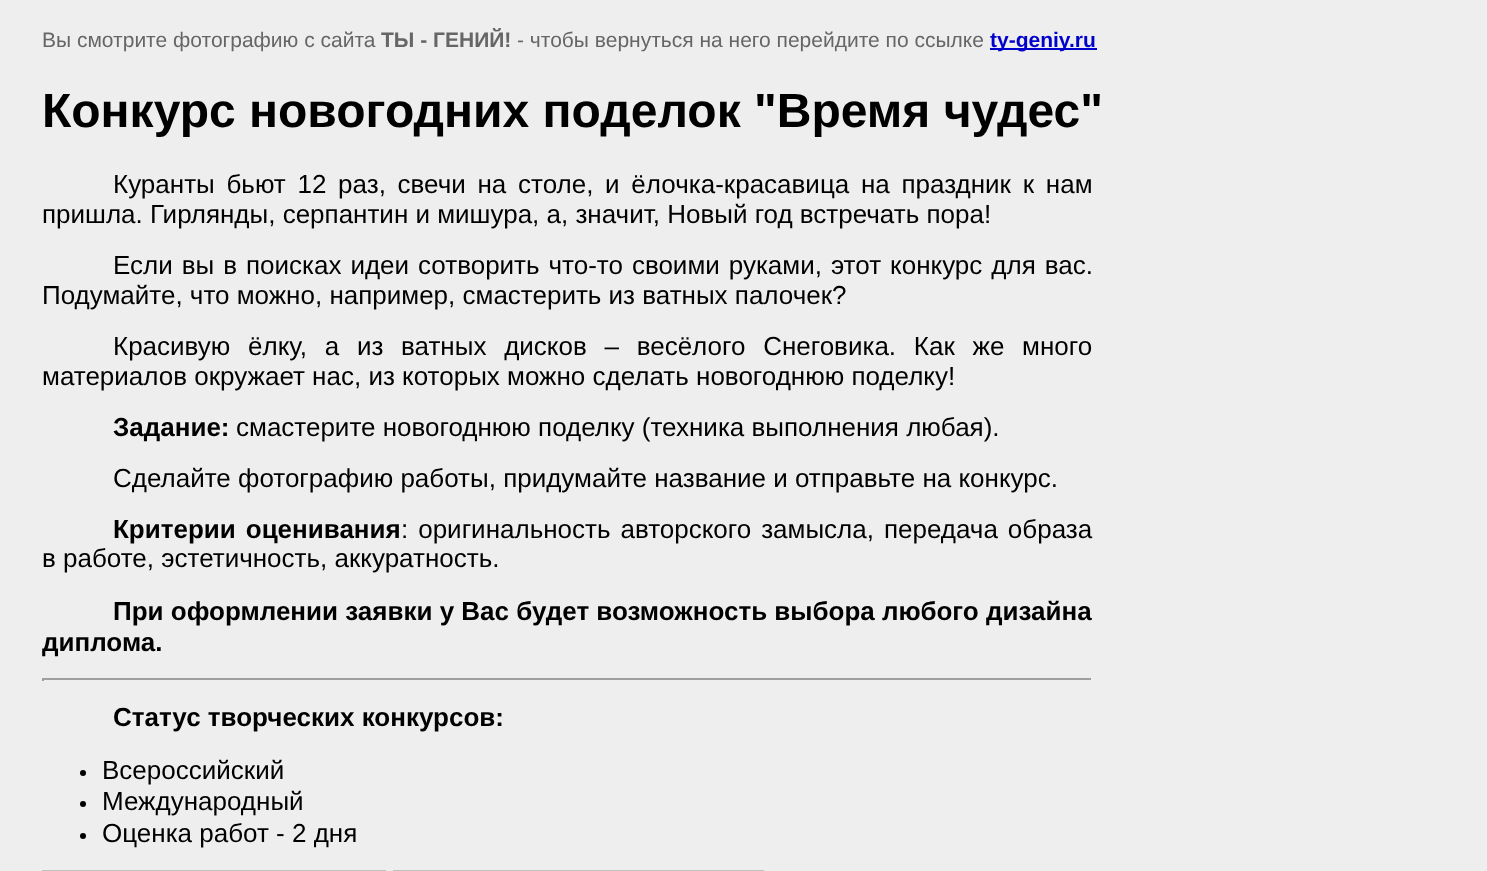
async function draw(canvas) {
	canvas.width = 1487;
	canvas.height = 871;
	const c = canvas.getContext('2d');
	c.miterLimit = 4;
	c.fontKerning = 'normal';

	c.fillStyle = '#eee';
	c.fillRect(0, 0, 1487, 871);
	c.font = '21px Liberation Sans';
	c.fillStyle = '#666';
	c.fillText('Вы смотрите фотографию с сайта', 42, 47);
	c.font = 'bold 21px Liberation Sans';
	c.fillText('ТЫ - ГЕНИЙ!', 381, 47);
	c.font = '21px Liberation Sans';
	c.fillText('- чтобы вернуться на него перейдите по ссылке', 517, 47);
	c.fillStyle = '#00c';
	c.fillRect(990, 48, 107, 2);
	c.font = 'bold 21px Liberation Sans';
	c.fillText('ty-geniy.ru', 990, 47);
	c.font = 'bold 48px Liberation Sans';
	c.fillStyle = '#000';
	c.fillText('Конкурс новогодних поделок "Время чудес"', 42, 127);
	c.wordSpacing = '4.5px';
	c.font = '26px Liberation Sans';
	c.fillText('Куранты бьют 12 раз, свечи на столе, и ёлочка-красавица на праздник к нам', 113, 193);
	c.wordSpacing = '0px';
	c.fillText('пришла. Гирлянды, серпантин и мишура, а, значит, Новый год встречать пора!', 42, 223);
	c.wordSpacing = '1.75px';
	c.fillText('Если вы в поисках идеи сотворить что-то своими руками, этот конкурс для вас.', 113, 274);
	c.wordSpacing = '0px';
	c.fillText('Подумайте, что можно, например, смастерить из ватных палочек?', 42, 304);
	c.wordSpacing = '10.5px';
	c.fillText('Красивую ёлку, а из ватных дисков – весёлого Снеговика. Как же много', 113, 355);
	c.wordSpacing = '0px';
	c.fillText('материалов окружает нас, из которых можно сделать новогоднюю поделку!', 42, 385);
	c.font = 'bold 26px Liberation Sans';
	c.fillText('Задание:', 113, 436);
	c.font = '26px Liberation Sans';
	c.fillText('смастерите новогоднюю поделку (техника выполнения любая).', 236, 436);
	c.fillText('Сделайте фотографию работы, придумайте название и отправьте на конкурс.', 113, 487);
	c.wordSpacing = '2.75px';
	c.font = 'bold 26px Liberation Sans';
	c.fillText('Критерии оценивания', 113, 538);
	c.font = '26px Liberation Sans';
	c.fillText(': оригинальность авторского замысла, передача образа', 401, 538);
	c.wordSpacing = '0px';
	c.fillText('в работе, эстетичность, аккуратность.', 42, 567);
	c.font = 'bold 26px Liberation Sans';
	c.fillText('При оформлении заявки у Вас будет возможность выбора любого дизайна', 113, 620);
	c.fillText('диплома.', 42, 651);
	for (const [x, y, w, h, color] of [
		[42, 678, 1050, 2, '#9f9f9f'],
		[1091, 678, 1, 3, '#eee'],
		[42, 678, 2, 3, '#9f9f9f'],
	]) {
		c.fillStyle = color;
		c.fillRect(x, y, w, h);
	}
	c.fillStyle = '#000';
	c.fillText('Статус творческих конкурсов:', 113, 726);
	c.beginPath();
	c.arc(83, 773, 3, 0, 2 * Math.PI);
	c.fill();
	c.font = '26px Liberation Sans';
	c.fillText('Всероссийский', 102, 779);
	c.beginPath();
	c.arc(83, 804, 3, 0, 2 * Math.PI);
	c.fill();
	c.fillText('Международный', 102, 810);
	c.beginPath();
	c.arc(83, 836, 3, 0, 2 * Math.PI);
	c.fill();
	c.fillText('Оценка работ - 2 дня', 102, 842);
	c.strokeStyle = '#c0c0c0';
	c.lineWidth = 2;
	c.strokeRect(43, 871, 342, 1);
	c.strokeRect(394, 871, 369, 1);
}

draw(document.querySelector('canvas'));
